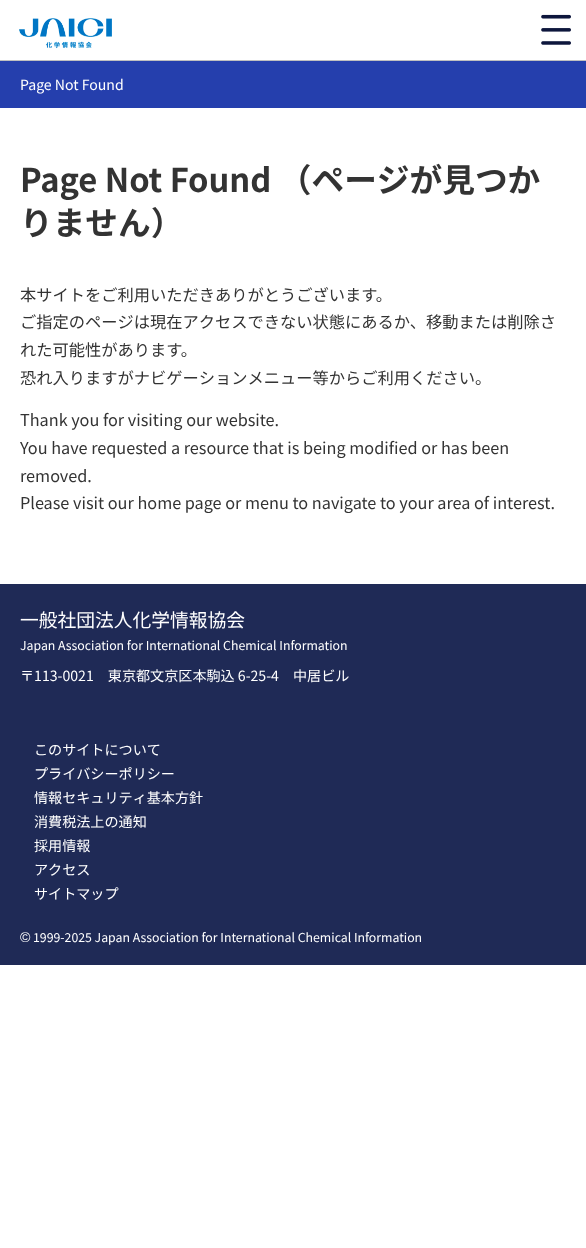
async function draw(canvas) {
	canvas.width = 586;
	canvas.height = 1248;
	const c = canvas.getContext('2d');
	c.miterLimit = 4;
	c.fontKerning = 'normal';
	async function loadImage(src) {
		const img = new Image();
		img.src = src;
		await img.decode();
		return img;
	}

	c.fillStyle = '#fff';
	c.fillRect(0, 0, 586, 1248);
	c.fillStyle = '#c0c0c0';
	c.fillRect(0, 60, 586, 1);
	c.drawImage(await loadImage('img1.png'), 19, 18, 93, 31);
	c.drawImage(await loadImage('img2.png'), 541, 14, 30, 31);
	c.fillStyle = '#253fad';
	c.fillRect(0, 61, 586, 47);
	c.font = '14.1px Noto Sans JP';
	c.fillStyle = '#fff';
	c.fillText('Page Not Found', 20, 90);
	c.font = 'bold 32.7px Noto Sans JP';
	c.fillStyle = '#333';
	c.fillText('Page Not Found （ページが見つか', 20, 192);
	c.fillText('りません）', 20, 235);
	c.font = '16.25px Noto Sans JP';
	for (const [text, x, y] of [
		['本サイトをご利用いただきありがとうございます。', 20, 301],
		['ご指定のページは現在アクセスできない状態にあるか、移動または削除さ', 20, 328],
		['れた可能性があります。', 20, 356],
		['恐れ入りますがナビゲーションメニュー等からご利用ください。', 20, 384],
		['Thank you for visiting our website.', 20, 426],
		['You have requested a resource that is being modified or has been', 20, 454],
		['removed.', 20, 482],
		['Please visit our home page or menu to navigate to your area of interest.', 20, 509],
	]) {
		c.fillText(text, x, y);
	}
	c.fillStyle = '#1f2a56';
	c.fillRect(0, 584, 586, 381);
	c.font = '18.75px Noto Sans JP';
	c.fillStyle = '#fff';
	c.fillText('一般社団法人化学情報協会', 20, 627);
	c.font = '12.3px Noto Sans JP';
	c.fillText('Japan Association for International Chemical Information', 20, 650);
	c.font = '14.1px Noto Sans JP';
	for (const [text, x, y] of [
		['〒113-0021　東京都文京区本駒込 6-25-4　中居ビル', 20, 681],
		['このサイトについて', 34, 755],
		['プライバシーポリシー', 34, 779],
		['情報セキュリティ基本方針', 34, 803],
		['消費税法上の通知', 34, 827],
		['採用情報', 34, 851],
		['アクセス', 34, 875],
		['サイトマップ', 34, 899],
	]) {
		c.fillText(text, x, y);
	}
	c.font = '14.1px Liberation Sans';
	c.fillText('©', 20, 942);
	c.font = '12.3px Noto Sans JP';
	c.fillText('1999-2025 Japan Association for International Chemical Information', 33, 942);
}

draw(document.querySelector('canvas'));
